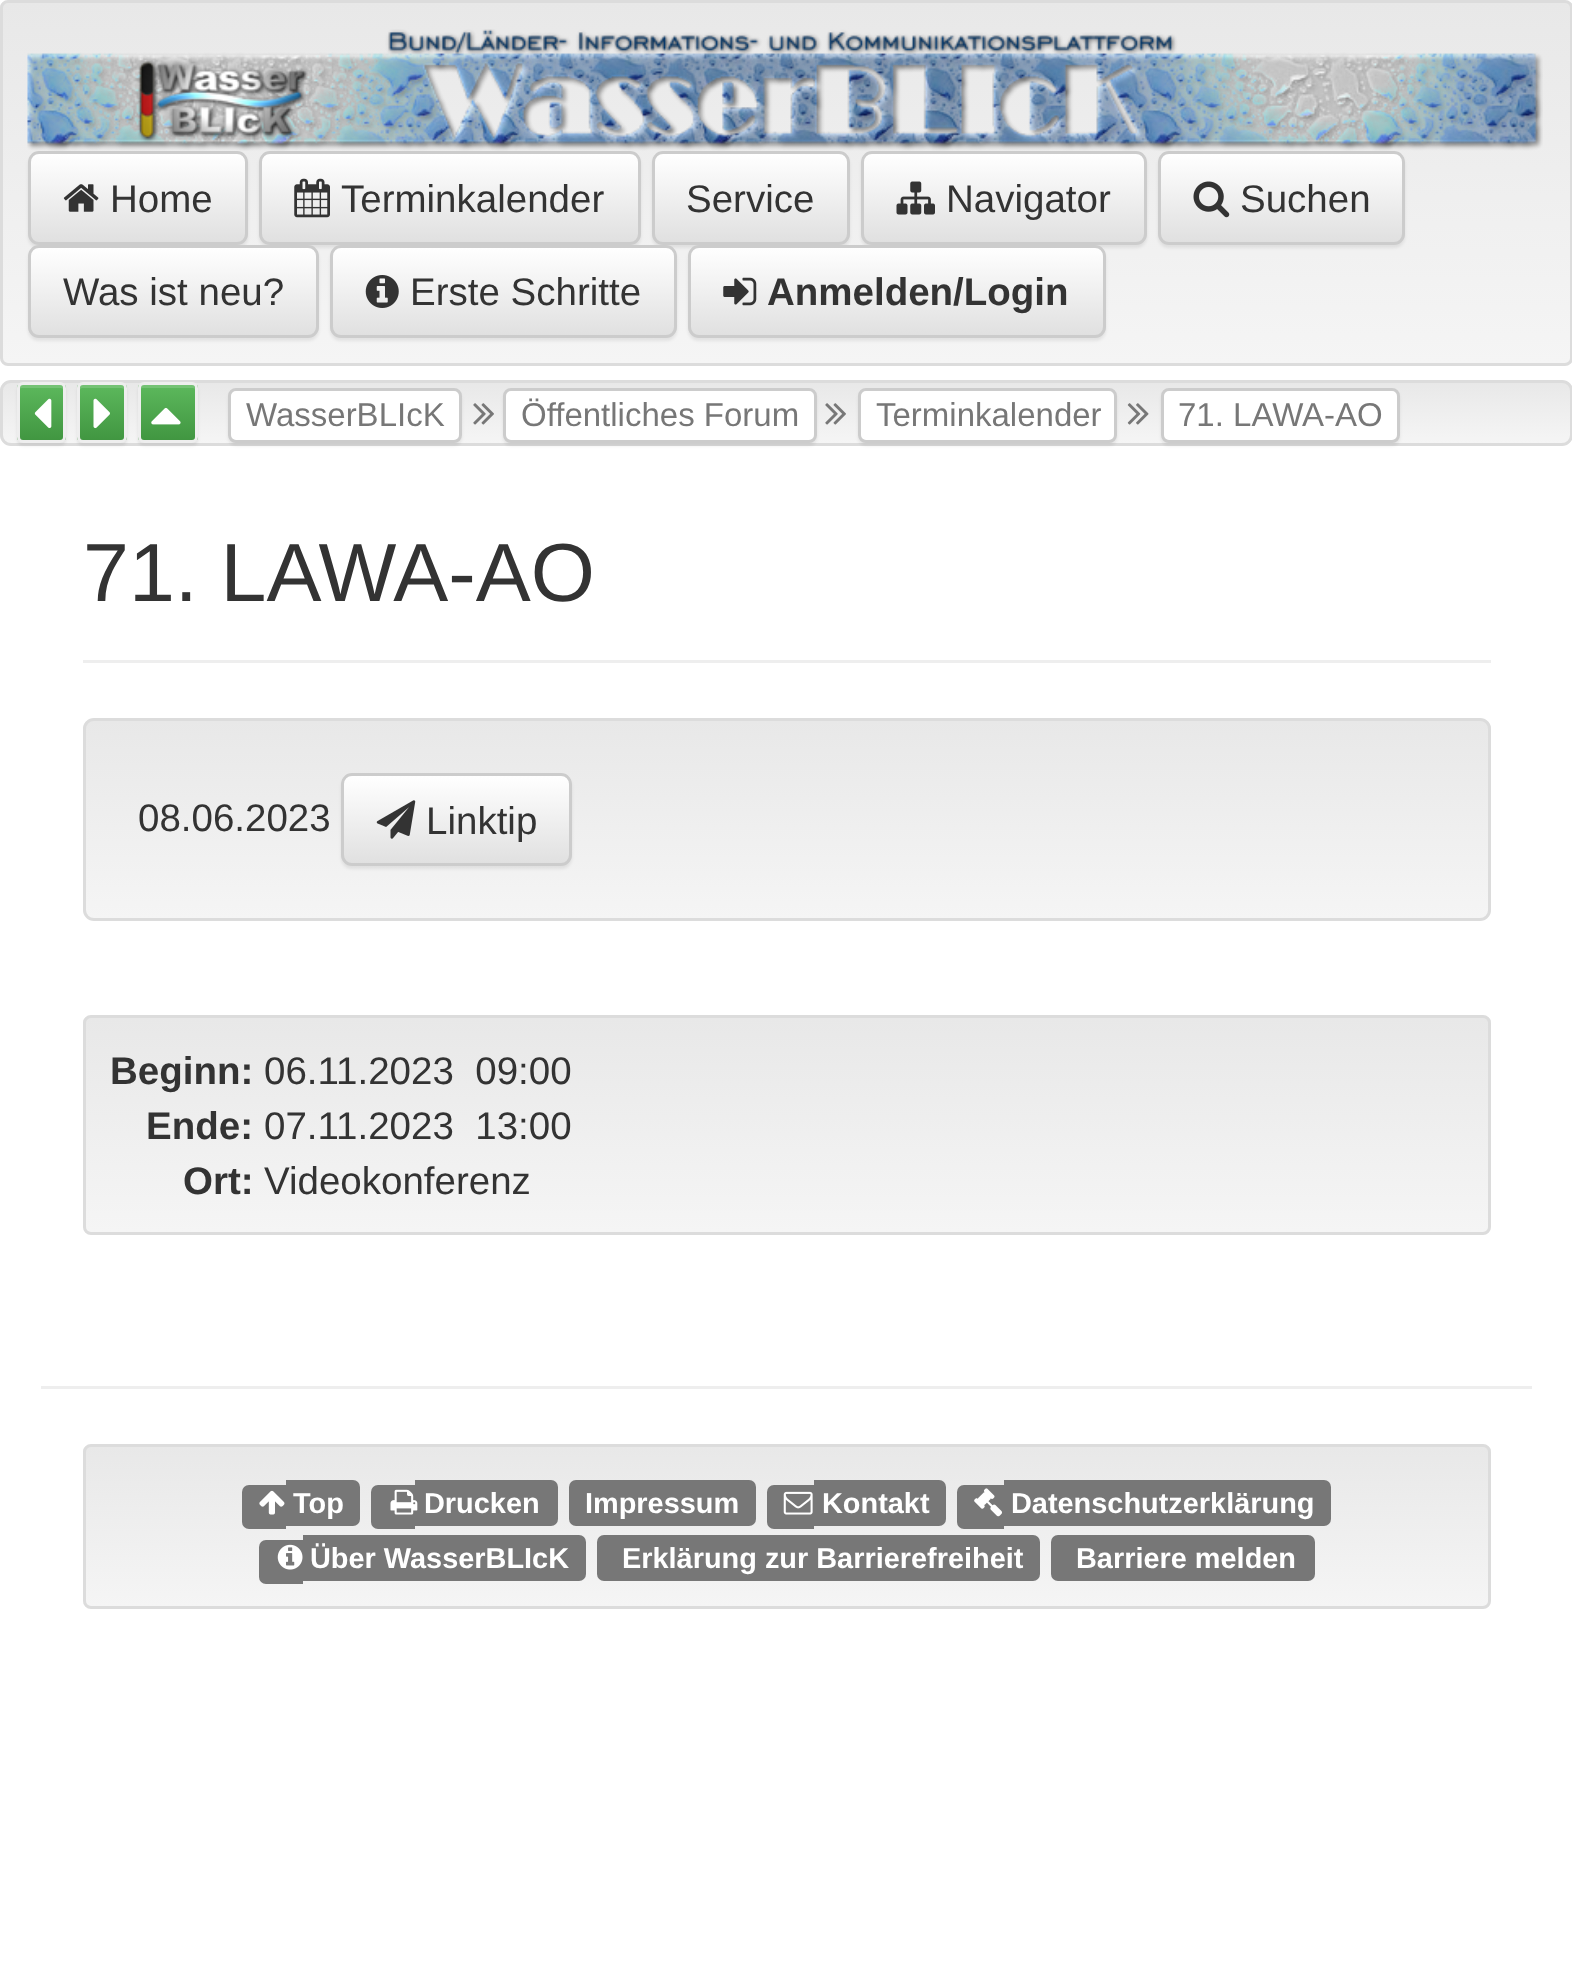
async function draw(canvas) {
	canvas.width = 1572;
	canvas.height = 1986;
	const c = canvas.getContext('2d');
	c.miterLimit = 4;
	c.fontKerning = 'normal';
	async function loadImage(src) {
		const img = new Image();
		img.src = src;
		await img.decode();
		return img;
	}
	let gradient;

	c.fillStyle = '#fff';
	c.fillRect(0, 0, 1572, 1986);
	c.save();
	c.beginPath();
	c.roundRect(0, 0, 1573, 366, 8);
	c.clip();
	gradient = c.createLinearGradient(787, 2.7, 787, 363);
	gradient.addColorStop(0, '#e8e8e8');
	gradient.addColorStop(1, '#f5f5f5');
	c.fillStyle = gradient;
	c.fillRect(0, 3, 1572, 360);
	c.restore();
	c.beginPath();
	c.roundRect(1.5, 1.5, 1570, 363, 6.5);
	c.strokeStyle = '#dcdcdc';
	c.lineWidth = 3;
	c.stroke();
	c.drawImage(await loadImage('img1.png'), 27, 29, 1516, 122);
	c.fillStyle = '#00000012';
	c.filter = 'blur(1.5px)';
	c.beginPath();
	c.roundRect(28, 154, 220, 94, 11);
	c.fill();
	c.filter = 'none';
	c.save();
	c.beginPath();
	c.roundRect(28, 151, 220, 94, 11);
	c.clip();
	gradient = c.createLinearGradient(138, 154, 138, 242);
	gradient.addColorStop(0, '#fff');
	gradient.addColorStop(1, '#e0e0e0');
	c.fillStyle = gradient;
	c.fillRect(28, 154, 220, 88);
	c.restore();
	c.beginPath();
	c.roundRect(29.5, 152.5, 217, 91, 9.5);
	c.strokeStyle = '#ccc';
	c.stroke();
	c.drawImage(await loadImage('img2.png'), 63, 184, 36, 28);
	c.font = '38.5px Liberation Sans';
	c.fillStyle = '#333';
	c.fillText('Home', 110, 212);
	c.fillStyle = '#00000012';
	c.filter = 'blur(1.5px)';
	c.beginPath();
	c.roundRect(259, 154, 382, 94, 11);
	c.fill();
	c.filter = 'none';
	c.save();
	c.beginPath();
	c.roundRect(259, 151, 382, 94, 11);
	c.clip();
	gradient = c.createLinearGradient(450, 154, 450, 242);
	gradient.addColorStop(0, '#fff');
	gradient.addColorStop(1, '#e0e0e0');
	c.fillStyle = gradient;
	c.fillRect(259, 154, 382, 88);
	c.restore();
	c.beginPath();
	c.roundRect(260.5, 152.5, 379, 91, 9.5);
	c.stroke();
	c.drawImage(await loadImage('img3.png'), 294, 178, 36, 40);
	c.fillStyle = '#333';
	c.fillText('Terminkalender', 341, 212);
	c.fillStyle = '#00000012';
	c.filter = 'blur(1.5px)';
	c.beginPath();
	c.roundRect(652, 154, 198, 94, 11);
	c.fill();
	c.filter = 'none';
	c.save();
	c.beginPath();
	c.roundRect(652, 151, 198, 94, 11);
	c.clip();
	gradient = c.createLinearGradient(751, 154, 751, 242);
	gradient.addColorStop(0, '#fff');
	gradient.addColorStop(1, '#e0e0e0');
	c.fillStyle = gradient;
	c.fillRect(652, 154, 198, 88);
	c.restore();
	c.beginPath();
	c.roundRect(653.5, 152.5, 195, 91, 9.5);
	c.stroke();
	c.fillStyle = '#333';
	c.fillText('Service', 686, 212);
	c.fillStyle = '#00000012';
	c.filter = 'blur(1.5px)';
	c.beginPath();
	c.roundRect(861, 154, 286, 94, 11);
	c.fill();
	c.filter = 'none';
	c.save();
	c.beginPath();
	c.roundRect(861, 151, 286, 94, 11);
	c.clip();
	gradient = c.createLinearGradient(1004, 154, 1004, 242);
	gradient.addColorStop(0, '#fff');
	gradient.addColorStop(1, '#e0e0e0');
	c.fillStyle = gradient;
	c.fillRect(861, 154, 286, 88);
	c.restore();
	c.beginPath();
	c.roundRect(862.5, 152.5, 283, 91, 9.5);
	c.stroke();
	c.drawImage(await loadImage('img4.png'), 896, 181, 39, 34);
	c.fillStyle = '#333';
	c.fillText('Navigator', 946, 212);
	c.fillStyle = '#00000012';
	c.filter = 'blur(1.5px)';
	c.beginPath();
	c.roundRect(1158, 154, 247, 94, 11);
	c.fill();
	c.filter = 'none';
	c.save();
	c.beginPath();
	c.roundRect(1158, 151, 247, 94, 11);
	c.clip();
	gradient = c.createLinearGradient(1282, 154, 1282, 242);
	gradient.addColorStop(0, '#fff');
	gradient.addColorStop(1, '#e0e0e0');
	c.fillStyle = gradient;
	c.fillRect(1158, 154, 247, 88);
	c.restore();
	c.fillStyle = '#ffffff26';
	c.beginPath();
	c.moveTo(1169, 157);
	c.lineTo(1394, 157);
	c.bezierCurveTo(1405, 157, 1402, 170, 1402, 177);
	c.lineTo(1402, 238);
	c.bezierCurveTo(1403, 237, 1403, 236, 1403, 234);
	c.lineTo(1403, 162);
	c.bezierCurveTo(1403, 158, 1399, 154, 1395, 154);
	c.lineTo(1169, 154);
	c.bezierCurveTo(1165, 154, 1162, 157, 1161, 161);
	c.bezierCurveTo(1163, 158, 1166, 157, 1169, 157);
	c.closePath();
	c.fill();
	c.beginPath();
	c.roundRect(1159.5, 152.5, 244, 91, 9.5);
	c.stroke();
	c.drawImage(await loadImage('img5.png'), 1193, 181, 37, 37);
	c.fillStyle = '#333';
	c.fillText('Suchen', 1240, 212);
	c.fillStyle = '#00000012';
	c.filter = 'blur(1.5px)';
	c.beginPath();
	c.roundRect(28, 248, 291, 93, 11);
	c.fill();
	c.filter = 'none';
	c.save();
	c.beginPath();
	c.roundRect(28, 245, 291, 93, 11);
	c.clip();
	gradient = c.createLinearGradient(173, 248, 173, 336);
	gradient.addColorStop(0, '#fff');
	gradient.addColorStop(1, '#e0e0e0');
	c.fillStyle = gradient;
	c.fillRect(28, 248, 291, 88);
	c.restore();
	c.beginPath();
	c.roundRect(29.5, 246.5, 288, 90, 9.5);
	c.stroke();
	c.fillStyle = '#333';
	c.fillText('Was ist neu?', 63, 305);
	c.fillStyle = '#00000012';
	c.filter = 'blur(1.5px)';
	c.beginPath();
	c.roundRect(330, 248, 347, 93, 11);
	c.fill();
	c.filter = 'none';
	c.save();
	c.beginPath();
	c.roundRect(330, 245, 347, 93, 11);
	c.clip();
	gradient = c.createLinearGradient(503, 248, 503, 336);
	gradient.addColorStop(0, '#fff');
	gradient.addColorStop(1, '#e0e0e0');
	c.fillStyle = gradient;
	c.fillRect(330, 248, 347, 88);
	c.restore();
	c.beginPath();
	c.roundRect(331.5, 246.5, 344, 90, 9.5);
	c.stroke();
	c.drawImage(await loadImage('img6.png'), 365, 275, 34, 33);
	c.fillStyle = '#333';
	c.fillText('Erste Schritte', 410, 305);
	c.fillStyle = '#00000012';
	c.filter = 'blur(1.5px)';
	c.beginPath();
	c.roundRect(688, 248, 418, 93, 11);
	c.fill();
	c.filter = 'none';
	c.save();
	c.beginPath();
	c.roundRect(688, 245, 418, 93, 11);
	c.clip();
	gradient = c.createLinearGradient(897, 247, 897, 336);
	gradient.addColorStop(0, '#fff');
	gradient.addColorStop(1, '#e0e0e0');
	c.fillStyle = gradient;
	c.fillRect(688, 248, 418, 88);
	c.restore();
	c.beginPath();
	c.roundRect(689.5, 246.5, 415, 90, 9.5);
	c.stroke();
	c.drawImage(await loadImage('img7.png'), 723, 277, 34, 29);
	c.font = 'bold 38.5px Liberation Sans';
	c.fillStyle = '#333';
	c.fillText('Anmelden/Login', 767, 305);
	c.save();
	c.beginPath();
	c.roundRect(0, 380, 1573, 66, 11);
	c.clip();
	gradient = c.createLinearGradient(787, 382, 787, 443);
	gradient.addColorStop(0, '#e8e8e8');
	gradient.addColorStop(1, '#f5f5f5');
	c.fillStyle = gradient;
	c.fillRect(0, 382, 1572, 61);
	c.restore();
	c.beginPath();
	c.roundRect(1.5, 381.5, 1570, 63, 9.5);
	c.strokeStyle = '#dcdcdc';
	c.stroke();
	c.fillStyle = '#00000012';
	c.filter = 'blur(1.5px)';
	c.beginPath();
	c.roundRect(17, 385, 49, 61, 6);
	c.fill();
	c.filter = 'none';
	c.save();
	c.beginPath();
	c.roundRect(17, 382, 49, 61, 6);
	c.clip();
	gradient = c.createLinearGradient(41, 385, 41, 440);
	gradient.addColorStop(0, '#5cb85c');
	gradient.addColorStop(1, '#419641');
	c.fillStyle = gradient;
	c.fillRect(17, 385, 49, 55);
	c.restore();
	c.fillStyle = '#74c274';
	c.beginPath();
	c.moveTo(22, 388);
	c.lineTo(61, 388);
	c.bezierCurveTo(62, 388, 63, 389, 63, 390);
	c.bezierCurveTo(63, 383, 60, 385, 54, 385);
	c.lineTo(28, 385);
	c.bezierCurveTo(22, 385, 19, 383, 19, 390);
	c.bezierCurveTo(19, 389, 20, 388, 22, 388);
	c.closePath();
	c.fill();
	c.beginPath();
	c.roundRect(18.5, 383.5, 46, 58, 4.5);
	c.strokeStyle = '#eee';
	c.stroke();
	c.drawImage(await loadImage('img8.png'), 34, 398, 18, 31);
	c.fillStyle = '#00000012';
	c.filter = 'blur(1.5px)';
	c.beginPath();
	c.roundRect(77, 385, 50, 61, 6);
	c.fill();
	c.filter = 'none';
	c.save();
	c.beginPath();
	c.roundRect(77, 382, 50, 61, 6);
	c.clip();
	gradient = c.createLinearGradient(102, 385, 102, 440);
	gradient.addColorStop(0, '#5cb85c');
	gradient.addColorStop(1, '#419641');
	c.fillStyle = gradient;
	c.fillRect(77, 385, 50, 55);
	c.restore();
	c.fillStyle = '#74c274';
	c.beginPath();
	c.moveTo(82, 388);
	c.lineTo(121, 388);
	c.bezierCurveTo(123, 388, 124, 389, 124, 390);
	c.bezierCurveTo(124, 383, 121, 385, 115, 385);
	c.lineTo(89, 385);
	c.bezierCurveTo(83, 385, 80, 383, 80, 390);
	c.bezierCurveTo(80, 389, 81, 388, 82, 388);
	c.closePath();
	c.fill();
	c.beginPath();
	c.roundRect(78.5, 383.5, 47, 58, 4.5);
	c.stroke();
	c.drawImage(await loadImage('img9.png'), 93, 398, 17, 31);
	c.fillStyle = '#00000012';
	c.filter = 'blur(1.5px)';
	c.beginPath();
	c.roundRect(138, 385, 60, 61, 6);
	c.fill();
	c.filter = 'none';
	c.save();
	c.beginPath();
	c.roundRect(138, 382, 60, 61, 6);
	c.clip();
	gradient = c.createLinearGradient(168, 385, 168, 440);
	gradient.addColorStop(0, '#5cb85c');
	gradient.addColorStop(1, '#419641');
	c.fillStyle = gradient;
	c.fillRect(138, 385, 60, 55);
	c.restore();
	c.fillStyle = '#74c274';
	c.beginPath();
	c.moveTo(143, 388);
	c.lineTo(193, 388);
	c.bezierCurveTo(194, 388, 195, 389, 195, 390);
	c.bezierCurveTo(195, 383, 191, 385, 184, 385);
	c.lineTo(151, 385);
	c.bezierCurveTo(144, 385, 140, 383, 140, 390);
	c.bezierCurveTo(140, 389, 141, 388, 143, 388);
	c.closePath();
	c.fill();
	c.beginPath();
	c.roundRect(139.5, 383.5, 57, 58, 4.5);
	c.stroke();
	c.drawImage(await loadImage('img10.png'), 151, 407, 30, 18);
	c.fillStyle = '#00000012';
	c.filter = 'blur(1.5px)';
	c.beginPath();
	c.roundRect(228, 391, 234, 55, 8);
	c.fill();
	c.filter = 'none';
	c.fillStyle = '#fff';
	c.beginPath();
	c.roundRect(229.5, 389.5, 231, 52, 6.5);
	c.fill();
	c.strokeStyle = '#ccc';
	c.stroke();
	c.font = '33px Liberation Sans';
	c.fillStyle = '#777';
	c.fillText('WasserBLIcK', 246, 426);
	c.drawImage(await loadImage('img11.png'), 473, 403, 21, 22);
	c.fillStyle = '#00000012';
	c.filter = 'blur(1.5px)';
	c.beginPath();
	c.roundRect(503, 391, 314, 55, 8);
	c.fill();
	c.filter = 'none';
	c.fillStyle = '#fff';
	c.beginPath();
	c.roundRect(504.5, 389.5, 311, 52, 6.5);
	c.fill();
	c.stroke();
	c.fillStyle = '#777';
	c.fillText('Öffentliches Forum', 521, 426);
	c.drawImage(await loadImage('img11.png'), 825, 403, 21, 22);
	c.fillStyle = '#00000012';
	c.filter = 'blur(1.5px)';
	c.beginPath();
	c.roundRect(858, 391, 259, 55, 8);
	c.fill();
	c.filter = 'none';
	c.fillStyle = '#fff';
	c.beginPath();
	c.roundRect(859.5, 389.5, 256, 52, 6.5);
	c.fill();
	c.stroke();
	c.fillStyle = '#777';
	c.fillText('Terminkalender', 876, 426);
	c.drawImage(await loadImage('img12.png'), 1127, 403, 22, 22);
	c.fillStyle = '#00000012';
	c.filter = 'blur(1.5px)';
	c.beginPath();
	c.roundRect(1161, 391, 239, 55, 8);
	c.fill();
	c.filter = 'none';
	c.fillStyle = '#fff';
	c.beginPath();
	c.roundRect(1162.5, 389.5, 236, 52, 6.5);
	c.fill();
	c.stroke();
	c.fillStyle = '#777';
	c.fillText('71. LAWA-AO', 1178, 426);
	c.fillStyle = '#eee';
	c.fillRect(83, 660, 1408, 3);
	c.font = '82.5px Liberation Sans';
	c.fillStyle = '#333';
	c.fillText('71. LAWA-AO', 83, 601);
	c.save();
	c.beginPath();
	c.roundRect(83, 718, 1408, 203, 11);
	c.clip();
	gradient = c.createLinearGradient(787, 721, 787, 919);
	gradient.addColorStop(0, '#e8e8e8');
	gradient.addColorStop(1, '#f5f5f5');
	c.fillStyle = gradient;
	c.fillRect(83, 721, 1408, 198);
	c.restore();
	c.beginPath();
	c.roundRect(84.5, 719.5, 1405, 200, 9.5);
	c.strokeStyle = '#dcdcdc';
	c.stroke();
	c.font = '38.5px Liberation Sans';
	c.fillText('08.06.2023', 138, 831);
	c.fillStyle = '#00000012';
	c.filter = 'blur(1.5px)';
	c.beginPath();
	c.roundRect(341, 776, 231, 93, 11);
	c.fill();
	c.filter = 'none';
	c.save();
	c.beginPath();
	c.roundRect(341, 773, 231, 93, 11);
	c.clip();
	gradient = c.createLinearGradient(457, 776, 457, 864);
	gradient.addColorStop(0, '#fff');
	gradient.addColorStop(1, '#e0e0e0');
	c.fillStyle = gradient;
	c.fillRect(341, 776, 231, 88);
	c.restore();
	c.beginPath();
	c.roundRect(342.5, 774.5, 228, 90, 9.5);
	c.strokeStyle = '#ccc';
	c.stroke();
	c.drawImage(await loadImage('img13.png'), 376, 800, 40, 39);
	c.fillStyle = '#333';
	c.fillText('Linktip', 426, 834);
	c.save();
	c.beginPath();
	c.roundRect(83, 1015, 1408, 220, 8);
	c.clip();
	gradient = c.createLinearGradient(787, 1018, 787, 1232);
	gradient.addColorStop(0, '#e8e8e8');
	gradient.addColorStop(1, '#f5f5f5');
	c.fillStyle = gradient;
	c.fillRect(83, 1018, 1408, 214);
	c.restore();
	c.beginPath();
	c.roundRect(84.5, 1016.5, 1405, 217, 6.5);
	c.strokeStyle = '#dcdcdc';
	c.stroke();
	c.font = 'bold 38.5px Liberation Sans';
	c.fillText('Beginn:', 110, 1084);
	c.font = '38.5px Liberation Sans';
	c.fillText('06.11.2023  09:00', 264, 1084);
	c.font = 'bold 38.5px Liberation Sans';
	c.fillText('Ende:', 146, 1139);
	c.font = '38.5px Liberation Sans';
	c.fillText('07.11.2023  13:00', 264, 1139);
	c.font = 'bold 38.5px Liberation Sans';
	c.fillText('Ort:', 183, 1194);
	c.font = '38.5px Liberation Sans';
	c.fillText('Videokonferenz', 264, 1194);
	c.fillStyle = '#eee';
	c.fillRect(41, 1386, 1491, 3);
	c.save();
	c.beginPath();
	c.roundRect(83, 1444, 1408, 165, 8);
	c.clip();
	gradient = c.createLinearGradient(787, 1447, 787, 1606);
	gradient.addColorStop(0, '#e8e8e8');
	gradient.addColorStop(1, '#f5f5f5');
	c.fillStyle = gradient;
	c.fillRect(83, 1447, 1408, 159);
	c.restore();
	c.beginPath();
	c.roundRect(84.5, 1445.5, 1405, 162, 6.5);
	c.stroke();
	c.fillStyle = '#777';
	c.beginPath();
	c.roundRect(242, 1485, 44, 44, [7, 0, 0, 7]);
	c.fill();
	c.beginPath();
	c.roundRect(286, 1480, 74, 46, [0, 7, 7, 0]);
	c.fill();
	c.drawImage(await loadImage('img14.png'), 259, 1490, 26, 25);
	c.font = 'bold 28.9px Liberation Sans';
	c.fillStyle = '#fff';
	c.fillText('Top', 293, 1513);
	c.fillStyle = '#777';
	c.beginPath();
	c.roundRect(371, 1485, 44, 44, [7, 0, 0, 7]);
	c.fill();
	c.beginPath();
	c.roundRect(415, 1480, 143, 46, [0, 7, 7, 0]);
	c.fill();
	c.drawImage(await loadImage('img15.png'), 390, 1489, 28, 26);
	c.fillStyle = '#fff';
	c.fillText('Drucken', 424, 1513);
	c.fillStyle = '#777';
	c.beginPath();
	c.roundRect(569, 1480, 187, 46, 7);
	c.fill();
	c.fillStyle = '#fff';
	c.fillText('Impressum', 585, 1513);
	c.fillStyle = '#777';
	c.beginPath();
	c.roundRect(767, 1485, 47, 44, [7, 0, 0, 7]);
	c.fill();
	c.beginPath();
	c.roundRect(814, 1480, 132, 46, [0, 7, 7, 0]);
	c.fill();
	c.drawImage(await loadImage('img16.png'), 783, 1491, 30, 24);
	c.fillStyle = '#fff';
	c.fillText('Kontakt', 822, 1513);
	c.fillStyle = '#777';
	c.beginPath();
	c.roundRect(957, 1485, 47, 44, [7, 0, 0, 7]);
	c.fill();
	c.beginPath();
	c.roundRect(1004, 1480, 327, 46, [0, 7, 7, 0]);
	c.fill();
	c.drawImage(await loadImage('img17.png'), 974, 1488, 28, 29);
	c.fillStyle = '#fff';
	c.fillText('Datenschutzerklärung', 1011, 1513);
	c.fillStyle = '#777';
	c.beginPath();
	c.roundRect(259, 1540, 44, 44, [7, 0, 0, 7]);
	c.fill();
	c.beginPath();
	c.roundRect(303, 1535, 283, 46, [0, 7, 7, 0]);
	c.fill();
	c.drawImage(await loadImage('img18.png'), 277, 1544, 26, 26);
	c.fillStyle = '#fff';
	c.fillText('Über WasserBLIcK', 310, 1568);
	c.fillStyle = '#777';
	c.beginPath();
	c.roundRect(597, 1535, 443, 46, 7);
	c.fill();
	c.fillStyle = '#fff';
	c.fillText('Erklärung zur Barrierefreiheit', 622, 1568);
	c.fillStyle = '#777';
	c.beginPath();
	c.roundRect(1051, 1535, 264, 46, 7);
	c.fill();
	c.fillStyle = '#fff';
	c.fillText('Barriere melden', 1076, 1568);
}

draw(document.querySelector('canvas'));
